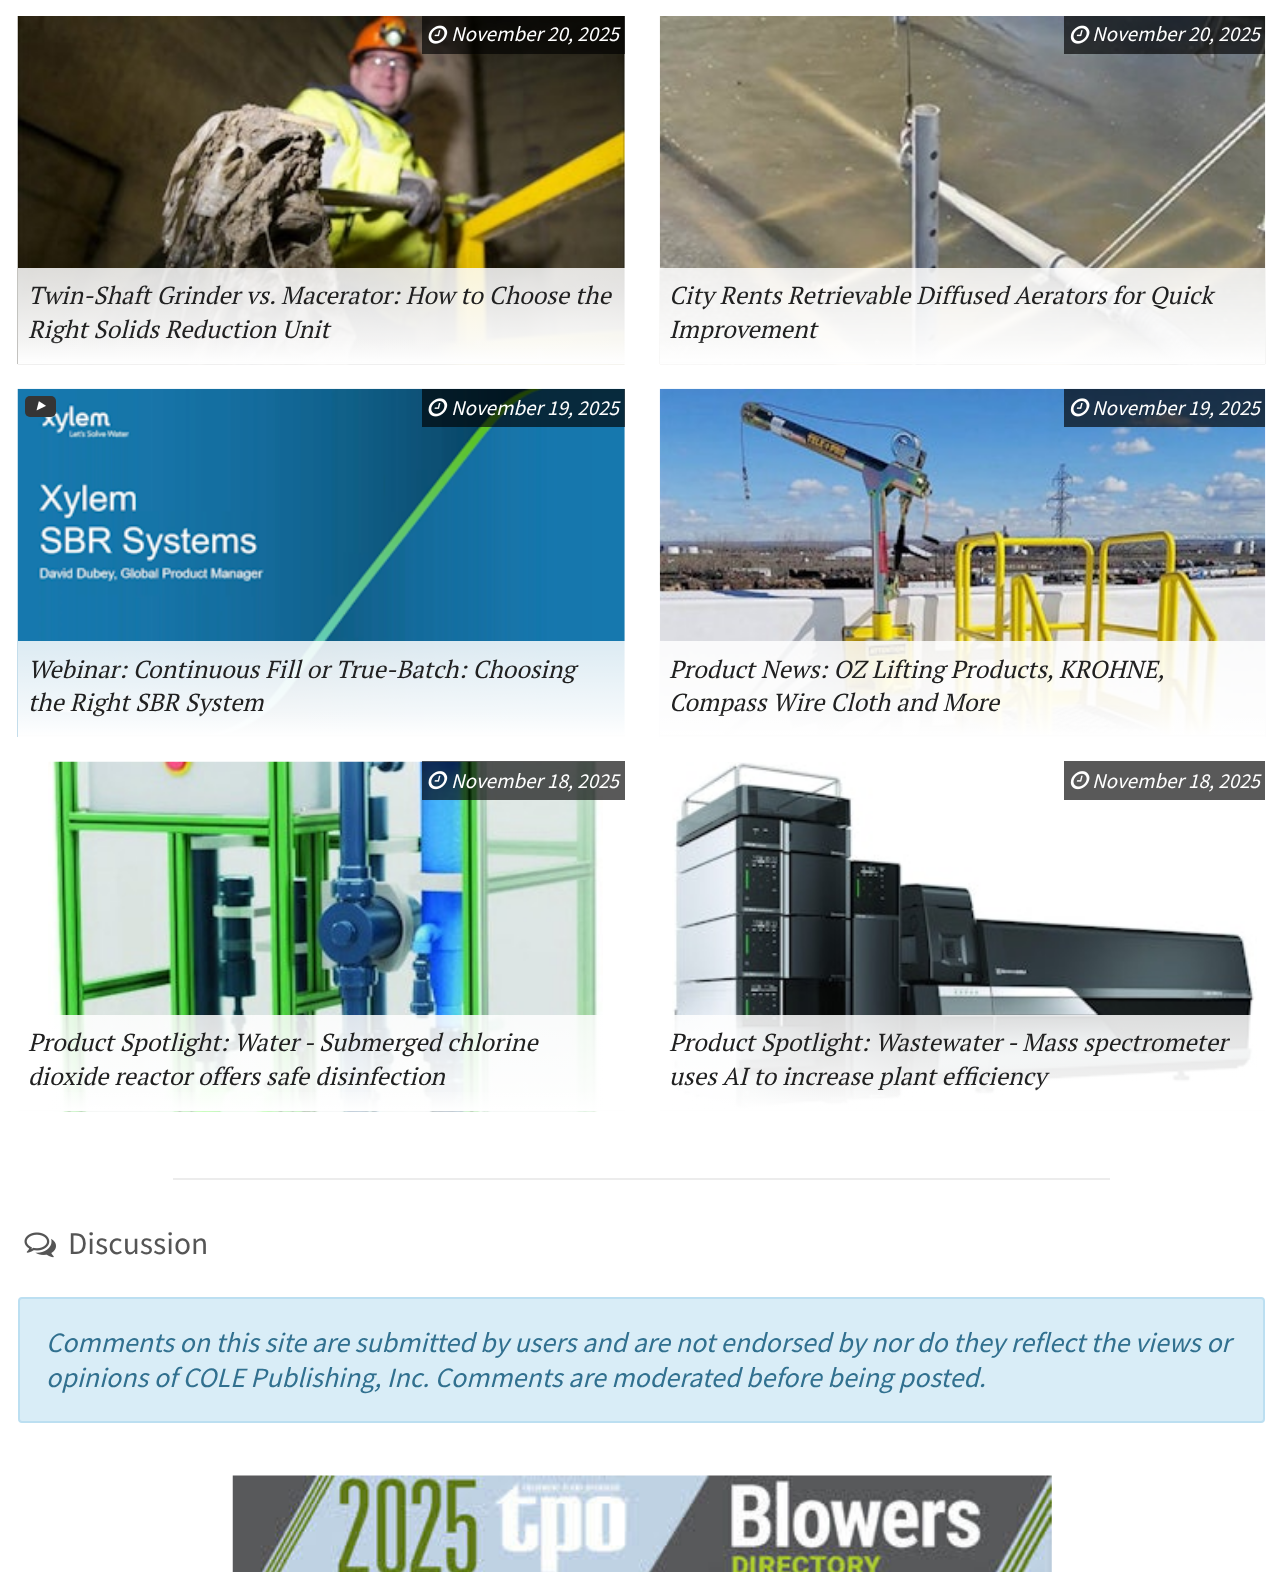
async function draw(canvas) {
	canvas.width = 1282;
	canvas.height = 1572;
	const c = canvas.getContext('2d');
	c.miterLimit = 4;
	c.fontKerning = 'normal';
	async function loadImage(src) {
		const img = new Image();
		img.src = src;
		await img.decode();
		return img;
	}
	let gradient;

	c.fillStyle = '#fff';
	c.fillRect(0, 0, 1282, 1572);
	c.drawImage(await loadImage('img1.png'), 17, 16, 608, 349);
	c.fillStyle = '#000000a6';
	c.fillRect(422, 16, 203, 38);
	c.drawImage(await loadImage('img2.png'), 428, 25, 20, 19);
	c.font = 'italic 21px Source Sans Pro';
	c.fillStyle = '#fff';
	c.fillText('November 20, 2025', 451, 41);
	gradient = c.createLinearGradient(321, 268, 321, 362);
	gradient.addColorStop(0, '#ffffffd9');
	gradient.addColorStop(0.75, '#fffffff2');
	c.fillStyle = gradient;
	c.fillRect(18, 268, 607, 94);
	c.fillStyle = '#e5e5e5';
	c.fillRect(18, 362, 607, 2);
	c.font = 'italic 24.5px PT Serif';
	c.fillStyle = '#212121';
	c.fillText('Twin-Shaft Grinder vs. Macerator: How to Choose the', 28, 304);
	c.fillText('Right Solids Reduction Unit', 28, 338);
	gradient = c.createLinearGradient(321, 339, 321, 364);
	gradient.addColorStop(0, '#ffffff00');
	gradient.addColorStop(1, '#fff');
	c.fillStyle = gradient;
	c.fillRect(18, 340, 607, 24);
	c.drawImage(await loadImage('img3.png'), 659, 16, 607, 349);
	c.fillStyle = '#000000a6';
	c.fillRect(1064, 16, 201, 38);
	c.drawImage(await loadImage('img4.png'), 1070, 25, 20, 19);
	c.font = 'italic 21px Source Sans Pro';
	c.fillStyle = '#fff';
	c.fillText('November 20, 2025', 1092, 41);
	c.fillStyle = '#e5e5e5';
	c.fillRect(660, 362, 605, 2);
	c.font = 'italic 24.5px PT Serif';
	c.fillStyle = '#212121';
	c.fillText('City Rents Retrievable Diffused Aerators for Quick', 669, 304);
	c.fillText('Improvement', 669, 338);
	gradient = c.createLinearGradient(963, 339, 963, 364);
	gradient.addColorStop(0, '#ffffff00');
	gradient.addColorStop(1, '#fff');
	c.fillStyle = gradient;
	c.fillRect(660, 340, 605, 24);
	c.drawImage(await loadImage('img5.png'), 17, 388, 608, 349);
	c.fillStyle = '#353535';
	c.beginPath();
	c.roundRect(25, 396, 31, 21, 5);
	c.fill();
	c.drawImage(await loadImage('img6.png'), 36, 401, 10, 10);
	c.fillStyle = '#000000a6';
	c.fillRect(422, 389, 203, 38);
	c.drawImage(await loadImage('img7.png'), 428, 398, 20, 19);
	c.font = 'italic 21px Source Sans Pro';
	c.fillStyle = '#fff';
	c.fillText('November 19, 2025', 451, 415);
	gradient = c.createLinearGradient(321, 641, 321, 735);
	gradient.addColorStop(0, '#ffffffd9');
	gradient.addColorStop(0.75, '#fffffff2');
	c.fillStyle = gradient;
	c.fillRect(18, 641, 607, 94);
	c.fillStyle = '#e5e5e5';
	c.fillRect(18, 735, 607, 2);
	c.font = 'italic 24.5px PT Serif';
	c.fillStyle = '#212121';
	c.fillText('Webinar: Continuous Fill or True-Batch: Choosing', 28, 678);
	c.fillText('the Right SBR System', 28, 711);
	gradient = c.createLinearGradient(321, 712, 321, 737);
	gradient.addColorStop(0, '#ffffff00');
	gradient.addColorStop(1, '#fff');
	c.fillStyle = gradient;
	c.fillRect(18, 713, 607, 24);
	c.drawImage(await loadImage('img8.png'), 659, 388, 607, 349);
	c.fillStyle = '#000000a6';
	c.fillRect(1064, 389, 201, 38);
	c.drawImage(await loadImage('img9.png'), 1070, 398, 20, 19);
	c.font = 'italic 21px Source Sans Pro';
	c.fillStyle = '#fff';
	c.fillText('November 19, 2025', 1092, 415);
	c.fillStyle = '#e5e5e5';
	c.fillRect(660, 735, 605, 2);
	c.font = 'italic 24.5px PT Serif';
	c.fillStyle = '#212121';
	c.fillText('Product News: OZ Lifting Products, KROHNE,', 669, 678);
	c.fillText('Compass Wire Cloth and More', 669, 711);
	gradient = c.createLinearGradient(963, 712, 963, 737);
	gradient.addColorStop(0, '#ffffff00');
	gradient.addColorStop(1, '#fff');
	c.fillStyle = gradient;
	c.fillRect(660, 713, 605, 24);
	c.drawImage(await loadImage('img10.png'), 48, 761, 555, 351);
	c.fillStyle = '#000000a6';
	c.fillRect(422, 761, 203, 39);
	c.drawImage(await loadImage('img11.png'), 428, 771, 20, 19);
	c.font = 'italic 21px Source Sans Pro';
	c.fillStyle = '#fff';
	c.fillText('November 18, 2025', 451, 788);
	gradient = c.createLinearGradient(321, 1015, 321, 1110);
	gradient.addColorStop(0, '#ffffffd9');
	gradient.addColorStop(0.75, '#fffffff2');
	c.fillStyle = gradient;
	c.fillRect(48, 1015, 555, 95);
	c.fillStyle = '#e5e5e5';
	c.fillRect(18, 1110, 607, 1);
	c.font = 'italic 24.5px PT Serif';
	c.fillStyle = '#212121';
	c.fillText('Product Spotlight: Water - Submerged chlorine', 28, 1051);
	c.fillText('dioxide reactor offers safe disinfection', 28, 1085);
	gradient = c.createLinearGradient(321, 1087, 321, 1111);
	gradient.addColorStop(0, '#ffffff00');
	gradient.addColorStop(1, '#fff');
	c.fillStyle = gradient;
	c.fillRect(18, 1092, 607, 19);
	c.drawImage(await loadImage('img12.png'), 672, 762, 585, 348);
	c.fillStyle = '#595959';
	c.fillRect(1064, 761, 201, 39);
	c.drawImage(await loadImage('img13.png'), 1070, 771, 20, 19);
	c.font = 'italic 21px Source Sans Pro';
	c.fillStyle = '#fff';
	c.fillText('November 18, 2025', 1092, 788);
	gradient = c.createLinearGradient(963, 1015, 963, 1110);
	gradient.addColorStop(0, '#ffffffd9');
	gradient.addColorStop(0.75, '#fffffff2');
	c.fillStyle = gradient;
	c.fillRect(672, 1015, 585, 95);
	c.fillStyle = '#e5e5e5';
	c.fillRect(660, 1110, 605, 1);
	c.font = 'italic 24.5px PT Serif';
	c.fillStyle = '#212121';
	c.fillText('Product Spotlight: Wastewater - Mass spectrometer', 669, 1051);
	c.fillText('uses AI to increase plant efficiency', 669, 1085);
	gradient = c.createLinearGradient(963, 1087, 963, 1111);
	gradient.addColorStop(0, '#ffffff00');
	gradient.addColorStop(1, '#fff');
	c.fillStyle = gradient;
	c.fillRect(660, 1088, 605, 23);
	c.fillStyle = '#ececec';
	c.fillRect(173, 1178, 937, 2);
	c.drawImage(await loadImage('img14.png'), 24, 1232, 32, 26);
	c.font = '31.5px Source Sans Pro';
	c.fillStyle = '#555';
	c.fillText('Discussion', 68, 1254);
	c.fillStyle = '#d9edf7';
	c.beginPath();
	c.roundRect(19, 1298, 1245, 124, 3);
	c.fill();
	c.strokeStyle = '#bcdff1';
	c.lineWidth = 2;
	c.stroke();
	c.font = 'italic 28px Source Sans Pro';
	c.fillStyle = '#31708f';
	c.fillText('Comments on this site are submitted by users and are not endorsed by nor do they reflect the views or', 46, 1352);
	c.fillText('opinions of COLE Publishing, Inc. Comments are moderated before being posted.', 46, 1387);
	c.drawImage(await loadImage('img15.png'), 232, 1475, 820, 97);
}

draw(document.querySelector('canvas'));
